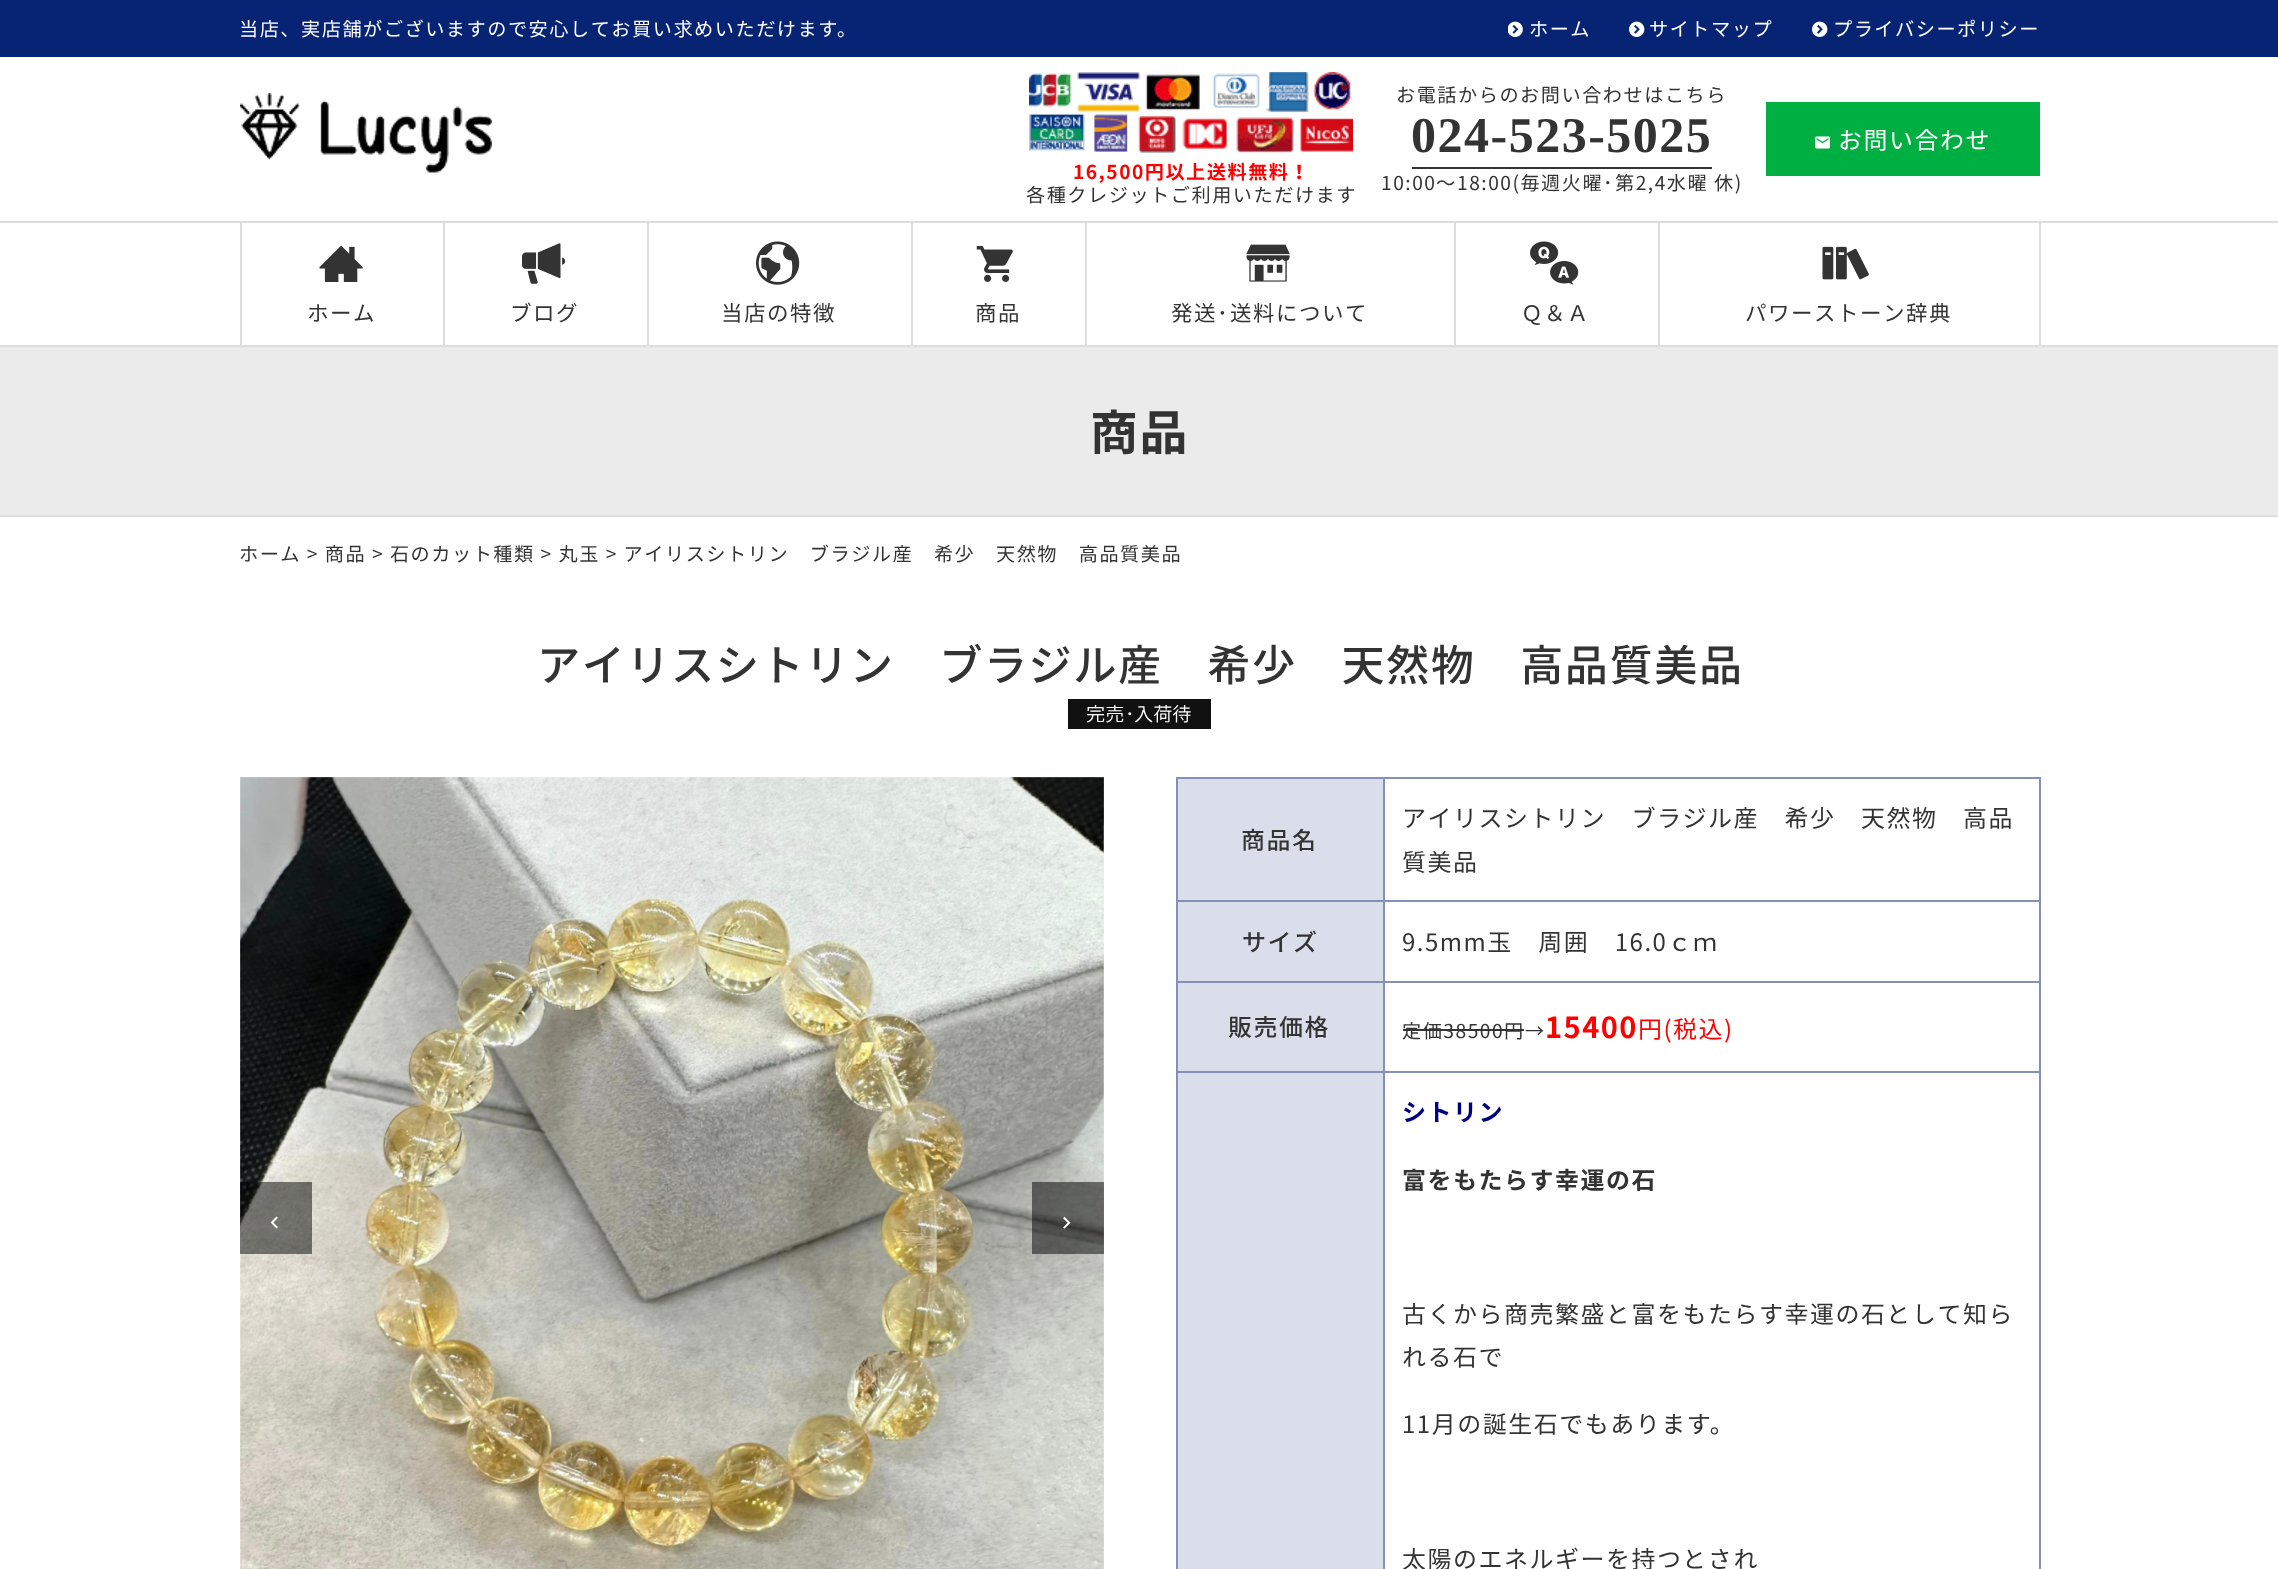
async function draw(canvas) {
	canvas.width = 2278;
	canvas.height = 1569;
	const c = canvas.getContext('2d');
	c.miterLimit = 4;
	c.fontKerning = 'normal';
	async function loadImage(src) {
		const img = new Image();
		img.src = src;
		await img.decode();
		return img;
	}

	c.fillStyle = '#fff';
	c.fillRect(0, 0, 2278, 1569);
	c.fillStyle = '#072374';
	c.fillRect(0, 0, 2278, 57);
	c.letterSpacing = '1.5px';
	c.font = '19.2px Noto Sans JP';
	c.fillStyle = '#fff';
	c.fillText('当店、実店舗がございますので安心してお買い求めいただけます。', 239, 36);
	c.drawImage(await loadImage('img1.png'), 1508, 21, 15, 16);
	c.fillText('ホーム', 1529, 36);
	c.drawImage(await loadImage('img2.png'), 1629, 21, 16, 16);
	c.fillText('サイトマップ', 1649, 36);
	c.drawImage(await loadImage('img2.png'), 1812, 21, 16, 16);
	c.fillText('プライバシーポリシー', 1833, 36);
	c.drawImage(await loadImage('img3.png'), 240, 93, 252, 80);
	c.fillStyle = '#333';
	c.fillText('お電話からのお問い合わせはこちら', 1396, 102);
	c.fillRect(1412, 167, 300, 2);
	c.font = 'bold 50px Liberation Serif';
	c.fillText('024-523-5025', 1411, 152);
	c.font = '19.2px Noto Sans JP';
	c.fillText('10:00', 1381, 190);
	c.font = '19.2px "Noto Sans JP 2"';
	c.fillText('～', 1436, 190);
	c.font = '19.2px Noto Sans JP';
	c.fillText('18:00(毎週火曜', 1457, 190);
	c.font = '19.2px "Noto Sans JP 2"';
	c.fillText('･', 1603, 190);
	c.font = '19.2px Noto Sans JP';
	c.fillText('第2,4水曜 休)', 1615, 190);
	c.fillStyle = '#00af42';
	c.fillRect(1766, 102, 274, 74);
	c.drawImage(await loadImage('img4.png'), 1815, 136, 15, 13);
	c.font = '24px Noto Sans JP';
	c.fillStyle = '#fff';
	c.fillText('お問い合わせ', 1838, 149);
	c.drawImage(await loadImage('img5.png'), 1029, 72, 324, 81);
	c.font = 'bold 19.2px Noto Sans JP';
	c.fillStyle = '#f00';
	c.fillText('16,500円以上送料無料！', 1073, 179);
	c.font = '19.2px Noto Sans JP';
	c.fillStyle = '#333';
	c.fillText('各種クレジットご利用いただけます', 1026, 202);
	for (const [x, y, w, h, color] of [
		[0, 221, 2278, 2, '#ddd'],
		[0, 345, 2278, 2, '#ddd'],
		[240, 222, 2, 123, '#ddd'],
		[443, 222, 2, 123, '#ddd'],
	]) {
		c.fillStyle = color;
		c.fillRect(x, y, w, h);
	}
	c.drawImage(await loadImage('img6.png'), 319, 245, 44, 37);
	c.font = '21.5px Noto Sans JP';
	c.fillStyle = '#333';
	c.fillText('ホーム', 307, 321);
	c.fillStyle = '#ddd';
	c.fillRect(647, 222, 2, 123);
	c.drawImage(await loadImage('img7.png'), 522, 243, 44, 41);
	c.fillStyle = '#333';
	c.fillText('ブログ', 510, 321);
	c.fillStyle = '#ddd';
	c.fillRect(911, 222, 2, 123);
	c.drawImage(await loadImage('img8.png'), 756, 241, 44, 44);
	c.fillStyle = '#333';
	c.fillText('当店の特徴', 721, 321);
	c.fillStyle = '#ddd';
	c.fillRect(1085, 222, 2, 123);
	c.drawImage(await loadImage('img9.png'), 976, 246, 37, 36);
	c.fillStyle = '#333';
	c.fillText('商品', 975, 321);
	c.fillStyle = '#ddd';
	c.fillRect(1454, 222, 2, 123);
	c.drawImage(await loadImage('img10.png'), 1246, 244, 44, 38);
	c.fillStyle = '#333';
	c.fillText('発送', 1171, 321);
	c.font = '21.5px "Noto Sans JP 2"';
	c.fillText('･', 1217, 321);
	c.font = '21.5px Noto Sans JP';
	c.fillText('送料について', 1230, 321);
	c.fillStyle = '#ddd';
	c.fillRect(1658, 222, 2, 123);
	c.drawImage(await loadImage('img11.png'), 1530, 241, 49, 44);
	c.fillStyle = '#333';
	c.fillText('Ｑ＆Ａ', 1521, 321);
	c.fillStyle = '#ddd';
	c.fillRect(2039, 222, 2, 123);
	c.drawImage(await loadImage('img12.png'), 1822, 246, 47, 34);
	c.fillStyle = '#333';
	c.fillText('パワーストーン辞典', 1745, 321);
	c.fillStyle = '#ebebeb';
	c.fillRect(0, 347, 2278, 168);
	c.fillStyle = '#ddd';
	c.fillRect(0, 515, 2278, 2);
	c.font = 'bold 48px Noto Sans JP';
	c.fillStyle = '#333';
	c.fillText('商品', 1090, 450);
	c.font = '19.2px Noto Sans JP';
	c.fillText('ホーム > 商品 > 石のカット種類 > 丸玉 > アイリスシトリン　ブラジル産　希少　天然物　高品質美品', 239, 561);
	c.font = '500 43.2px Noto Sans JP';
	c.fillText('アイリスシトリン　ブラジル産　希少　天然物　高品質美品', 537, 681);
	c.fillStyle = '#111';
	c.fillRect(1068, 699, 143, 30);
	c.letterSpacing = '0px';
	c.font = '300 19.2px Noto Sans JP';
	c.fillStyle = '#fff';
	c.fillText('完売', 1086, 721);
	c.font = '300 19.2px "Noto Sans JP 2"';
	c.fillText('･', 1125, 721);
	c.font = '300 19.2px Noto Sans JP';
	c.fillText('入荷待', 1134, 721);
	c.drawImage(await loadImage('img13.png'), 240, 777, 864, 792);
	c.drawImage(await loadImage('img14.png'), 1103, 777, 1, 494);
	c.fillStyle = '#00000080';
	c.fillRect(240, 1182, 72, 72);
	c.drawImage(await loadImage('img15.png'), 270, 1216, 8, 13);
	c.fillRect(1032, 1182, 72, 72);
	c.drawImage(await loadImage('img16.png'), 1063, 1216, 8, 13);
	for (const [x, y, w, h, color] of [
		[1178, 779, 205, 121, '#dadeea'],
		[1383, 777, 657, 2, '#8391b9'],
		[1383, 900, 657, 2, '#8391b9'],
		[1383, 981, 657, 2, '#8391b9'],
		[1383, 1071, 657, 2, '#8391b9'],
		[1383, 1071, 2, 498, '#8391b9'],
		[1176, 1071, 209, 2, '#8391b9'],
		[1383, 981, 2, 92, '#8391b9'],
		[1176, 981, 209, 2, '#8391b9'],
		[1383, 900, 2, 83, '#8391b9'],
		[1176, 900, 209, 2, '#8391b9'],
		[1383, 777, 2, 125, '#8391b9'],
		[1176, 777, 209, 2, '#8391b9'],
		[1176, 1071, 2, 498, '#8391b9'],
		[1176, 981, 2, 92, '#8391b9'],
		[1176, 900, 2, 83, '#8391b9'],
		[1176, 777, 2, 125, '#8391b9'],
	]) {
		c.fillStyle = color;
		c.fillRect(x, y, w, h);
	}
	c.letterSpacing = '1.5px';
	c.font = '500 24px Noto Sans JP';
	c.fillStyle = '#333';
	c.fillText('商品名', 1241, 849);
	for (const [x, y, w, h, color] of [
		[2039, 1071, 2, 498, '#8391b9'],
		[2039, 981, 2, 92, '#8391b9'],
		[2039, 900, 2, 83, '#8391b9'],
		[2039, 777, 2, 125, '#8391b9'],
	]) {
		c.fillStyle = color;
		c.fillRect(x, y, w, h);
	}
	c.font = '24px Noto Sans JP';
	c.fillStyle = '#333';
	c.fillText('アイリスシトリン　ブラジル産　希少　天然物　高品', 1402, 827);
	c.fillText('質美品', 1402, 871);
	c.fillStyle = '#dadeea';
	c.fillRect(1178, 902, 205, 79);
	c.font = '500 24px Noto Sans JP';
	c.fillStyle = '#333';
	c.fillText('サイズ', 1242, 951);
	c.font = '24px Noto Sans JP';
	c.fillText('9.5mm玉　周囲　16.0ｃｍ', 1402, 951);
	c.fillStyle = '#dadeea';
	c.fillRect(1178, 983, 205, 88);
	c.font = '500 24px Noto Sans JP';
	c.fillStyle = '#333';
	c.fillText('販売価格', 1228, 1036);
	c.font = '19.2px Noto Sans JP';
	c.fillText('定価38500円', 1402, 1038);
	c.fillRect(1403, 1029, 121, 2);
	c.font = '19.2px "Noto Sans JP 2"';
	c.fillText('→', 1525, 1038);
	c.font = 'bold 29px Noto Sans JP';
	c.fillStyle = '#f00';
	c.fillText('15400', 1545, 1038);
	c.font = '24px Noto Sans JP';
	c.fillText('円(税込)', 1638, 1038);
	c.fillStyle = '#dadeea';
	c.fillRect(1178, 1073, 205, 496);
	c.font = 'bold 24px Noto Sans JP';
	c.fillStyle = '#000080';
	c.fillText('シトリン', 1402, 1121);
	c.fillStyle = '#333';
	c.fillText('富をもたらす幸運の石', 1402, 1189);
	c.font = '24px Noto Sans JP';
	for (const [text, x, y] of [
		['古くから商売繁盛と富をもたらす幸運の石として知ら', 1402, 1323],
		['れる石で', 1402, 1366],
		['11月の誕生石でもあります。', 1402, 1433],
		['太陽のエネルギーを持つとされ', 1402, 1568],
	]) {
		c.fillText(text, x, y);
	}
}

draw(document.querySelector('canvas'));
